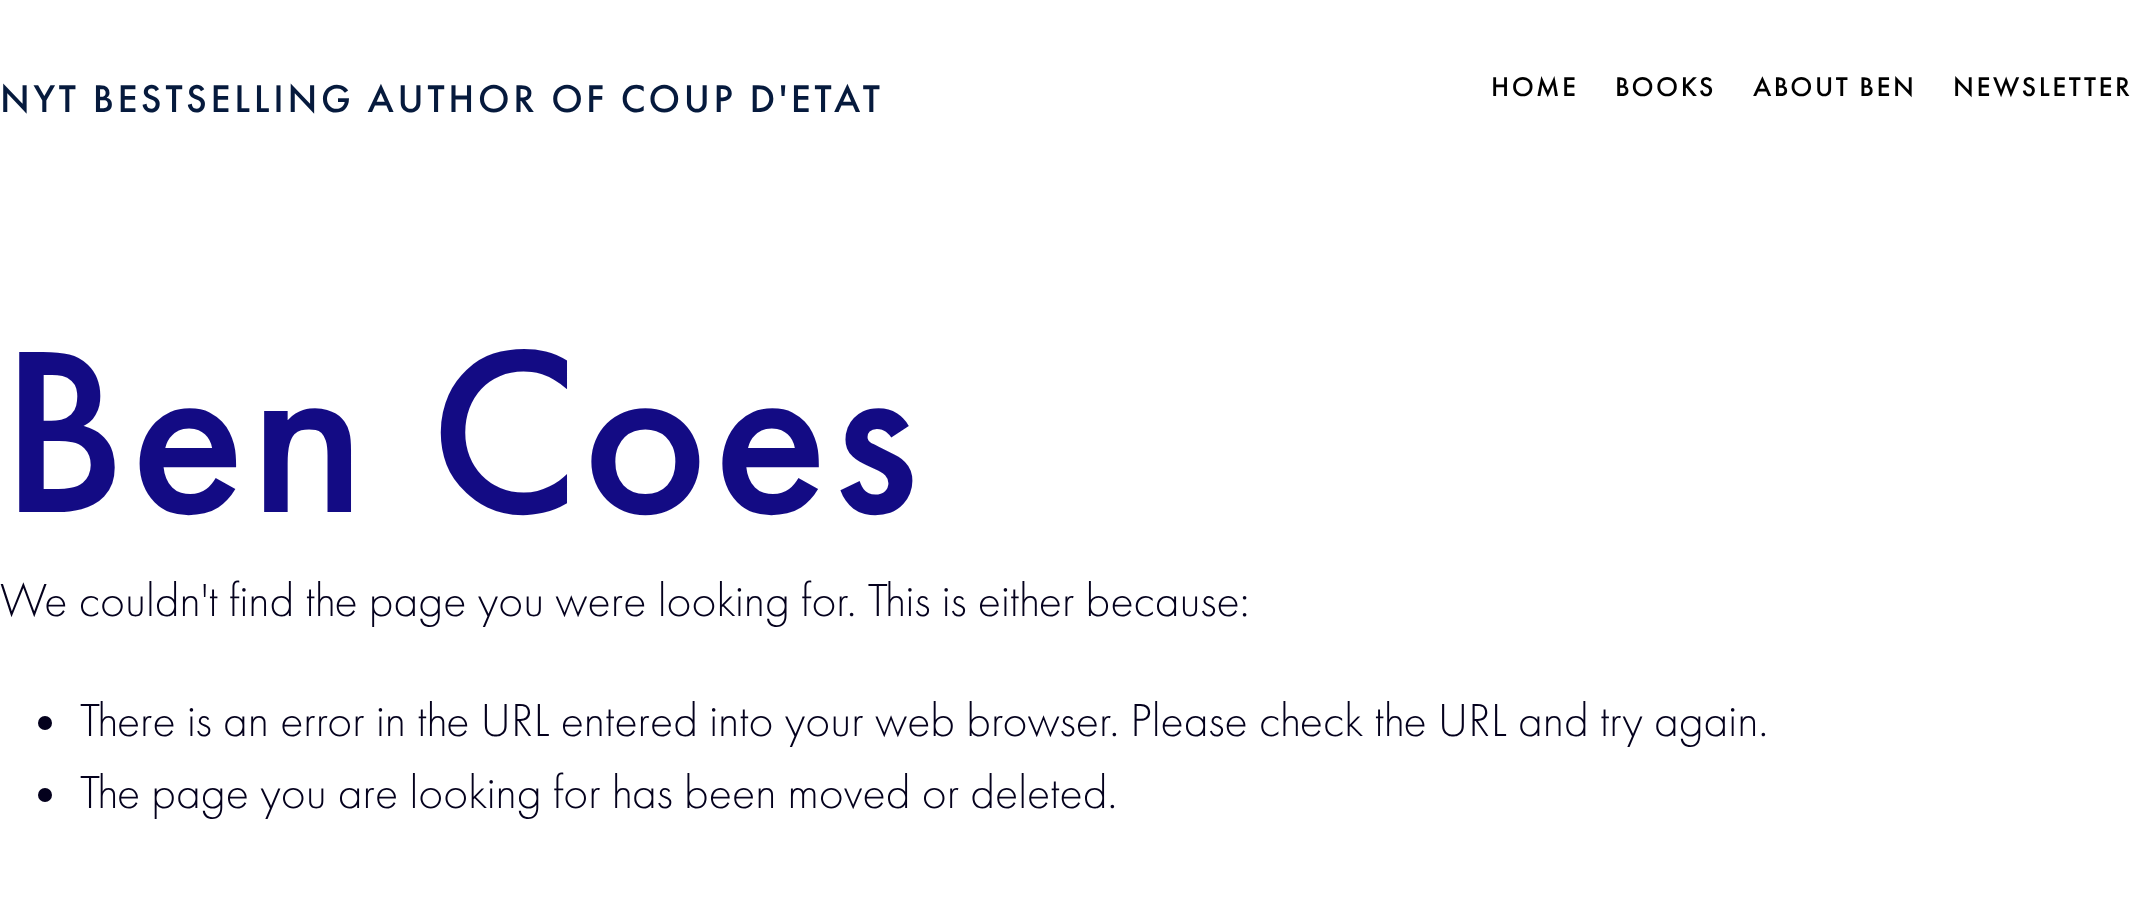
async function draw(canvas) {
	canvas.width = 2131;
	canvas.height = 916;
	const c = canvas.getContext('2d');
	c.miterLimit = 4;
	c.fontKerning = 'normal';

	c.fillStyle = '#fff';
	c.fillRect(0, 0, 2131, 916);
	c.letterSpacing = '3.7px';
	c.font = '500 40px Futura PT';
	c.fillStyle = '#061a3d';
	c.fillText('NYT BESTSELLING AUTHOR OF COUP D\'ETAT', 0, 112);
	c.letterSpacing = '3.75px';
	c.font = '500 240px Futura PT';
	c.fillStyle = '#130b84';
	c.fillText('Ben Coes', 0, 512);
	c.letterSpacing = '2.5px';
	c.font = '500 28px Futura PT';
	c.fillStyle = '#000';
	for (const [text, x, y] of [
		['HOME', 1491, 96],
		['BOOKS', 1615, 96],
		['ABOUT BEN', 1753, 96],
		['NEWSLETTER', 1953, 96],
	]) {
		c.fillText(text, x, y);
	}
	c.letterSpacing = '0px';
	c.font = '300 48px Futura PT';
	c.fillStyle = '#04011d';
	c.fillText('We couldn\'t find the page you were looking for. This is either because:', 0, 616);
	c.beginPath();
	c.arc(45, 723, 7, 0, 2 * Math.PI);
	c.fill();
	c.fillText('There is an error in the URL entered into your web browser. Please check the URL and try again.', 80, 736);
	c.beginPath();
	c.arc(45, 795, 7, 0, 2 * Math.PI);
	c.fill();
	c.fillText('The page you are looking for has been moved or deleted.', 80, 808);
}

draw(document.querySelector('canvas'));
